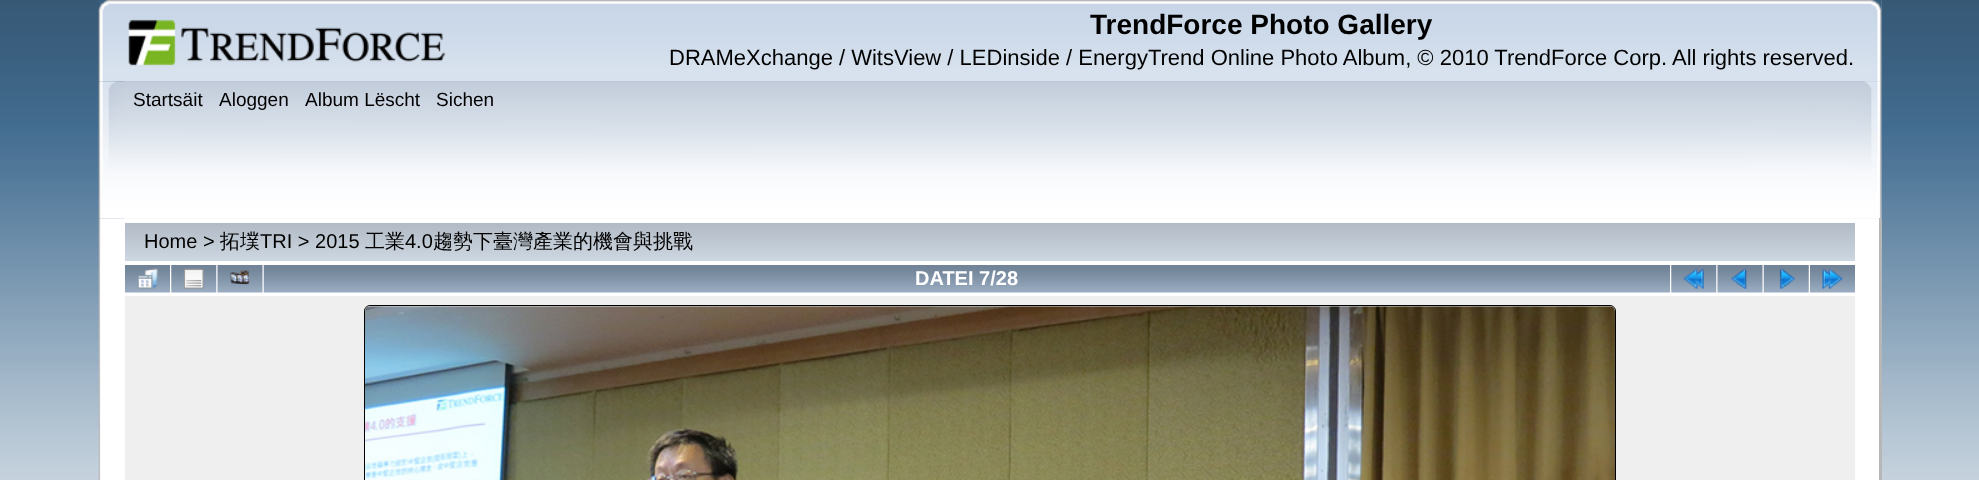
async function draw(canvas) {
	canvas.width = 1979;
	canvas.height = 480;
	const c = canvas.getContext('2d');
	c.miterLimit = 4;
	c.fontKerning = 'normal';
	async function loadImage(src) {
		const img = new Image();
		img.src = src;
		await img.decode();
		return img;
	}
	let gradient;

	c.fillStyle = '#fff';
	c.fillRect(0, 0, 1979, 480);
	c.drawImage(await loadImage('img1.png'), 0, 0, 1979, 480);
	c.drawImage(await loadImage('img2.png'), 98, 0, 1784, 82);
	c.drawImage(await loadImage('img3.png'), 123, 0, 1759, 82);
	c.drawImage(await loadImage('img4.png'), 128, 19, 318, 47);
	c.font = 'bold 28px Liberation Sans';
	c.fillStyle = '#000';
	c.fillText('TrendForce Photo Gallery', 1090, 34);
	c.font = '22px Liberation Sans';
	c.fillText('DRAMeXchange / WitsView / LEDinside / EnergyTrend Online Photo Album, © 2010 TrendForce Corp. All rights reserved.', 669, 65);
	c.drawImage(await loadImage('img5.png'), 98, 81, 1784, 138);
	c.drawImage(await loadImage('img6.png'), 124, 81, 1758, 138);
	c.font = '19px Liberation Sans';
	for (const [text, x, y] of [
		['Startsäit', 133, 106],
		['Aloggen', 219, 106],
		['Album Lëscht', 305, 106],
		['Sichen', 436, 106],
	]) {
		c.fillText(text, x, y);
	}
	c.drawImage(await loadImage('img7.png'), 98, 218, 1781, 262);
	c.fillStyle = '#b7b7b7';
	c.fillRect(1879, 218, 3, 262);
	gradient = c.createLinearGradient(990, 222, 990, 261);
	gradient.addColorStop(0, '#b1bac4');
	gradient.addColorStop(1, '#cdd7e1');
	c.fillStyle = gradient;
	c.fillRect(125, 223, 1730, 38);
	c.font = '20px Liberation Sans';
	c.fillStyle = '#000';
	c.fillText('Home >', 144, 248);
	c.font = '500 20px WenQuanYi Zen Hei';
	c.fillText('拓墣', 220, 248);
	c.font = '20px Liberation Sans';
	c.fillText('TRI > 2015', 260, 248);
	c.font = '500 20px WenQuanYi Zen Hei';
	c.fillText('工業', 365, 248);
	c.font = '20px Liberation Sans';
	c.fillText('4.0', 405, 248);
	c.font = '500 20px WenQuanYi Zen Hei';
	c.fillText('趨勢下臺灣產業的機會與挑戰', 433, 248);
	c.drawImage(await loadImage('img8.png'), 125, 265, 45, 28);
	c.drawImage(await loadImage('img9.png'), 137, 268, 21, 21);
	c.drawImage(await loadImage('img10.png'), 171, 265, 46, 28);
	c.drawImage(await loadImage('img11.png'), 183, 268, 21, 21);
	c.drawImage(await loadImage('img12.png'), 217, 265, 46, 28);
	c.drawImage(await loadImage('img13.png'), 230, 270, 20, 15);
	c.drawImage(await loadImage('img14.png'), 263, 265, 1407, 28);
	c.font = 'bold 20px Liberation Sans';
	c.fillStyle = '#fff';
	c.fillText('DATEI 7/28', 915, 285);
	c.drawImage(await loadImage('img10.png'), 1671, 265, 46, 28);
	c.drawImage(await loadImage('img15.png'), 1683, 268, 21, 21);
	c.drawImage(await loadImage('img12.png'), 1717, 265, 46, 28);
	c.drawImage(await loadImage('img16.png'), 1731, 268, 16, 21);
	c.drawImage(await loadImage('img17.png'), 1763, 265, 46, 28);
	c.drawImage(await loadImage('img18.png'), 1779, 268, 17, 21);
	c.drawImage(await loadImage('img8.png'), 1810, 265, 45, 28);
	c.drawImage(await loadImage('img19.png'), 1822, 268, 21, 21);
	c.fillStyle = '#efefef';
	c.fillRect(125, 296, 1730, 184);
	c.beginPath();
	c.roundRect(364.5, 305.5, 1251, 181, 5.5);
	c.strokeStyle = '#000';
	c.stroke();
	c.drawImage(await loadImage('img20.png'), 365, 306, 1250, 174);
}

draw(document.querySelector('canvas'));
